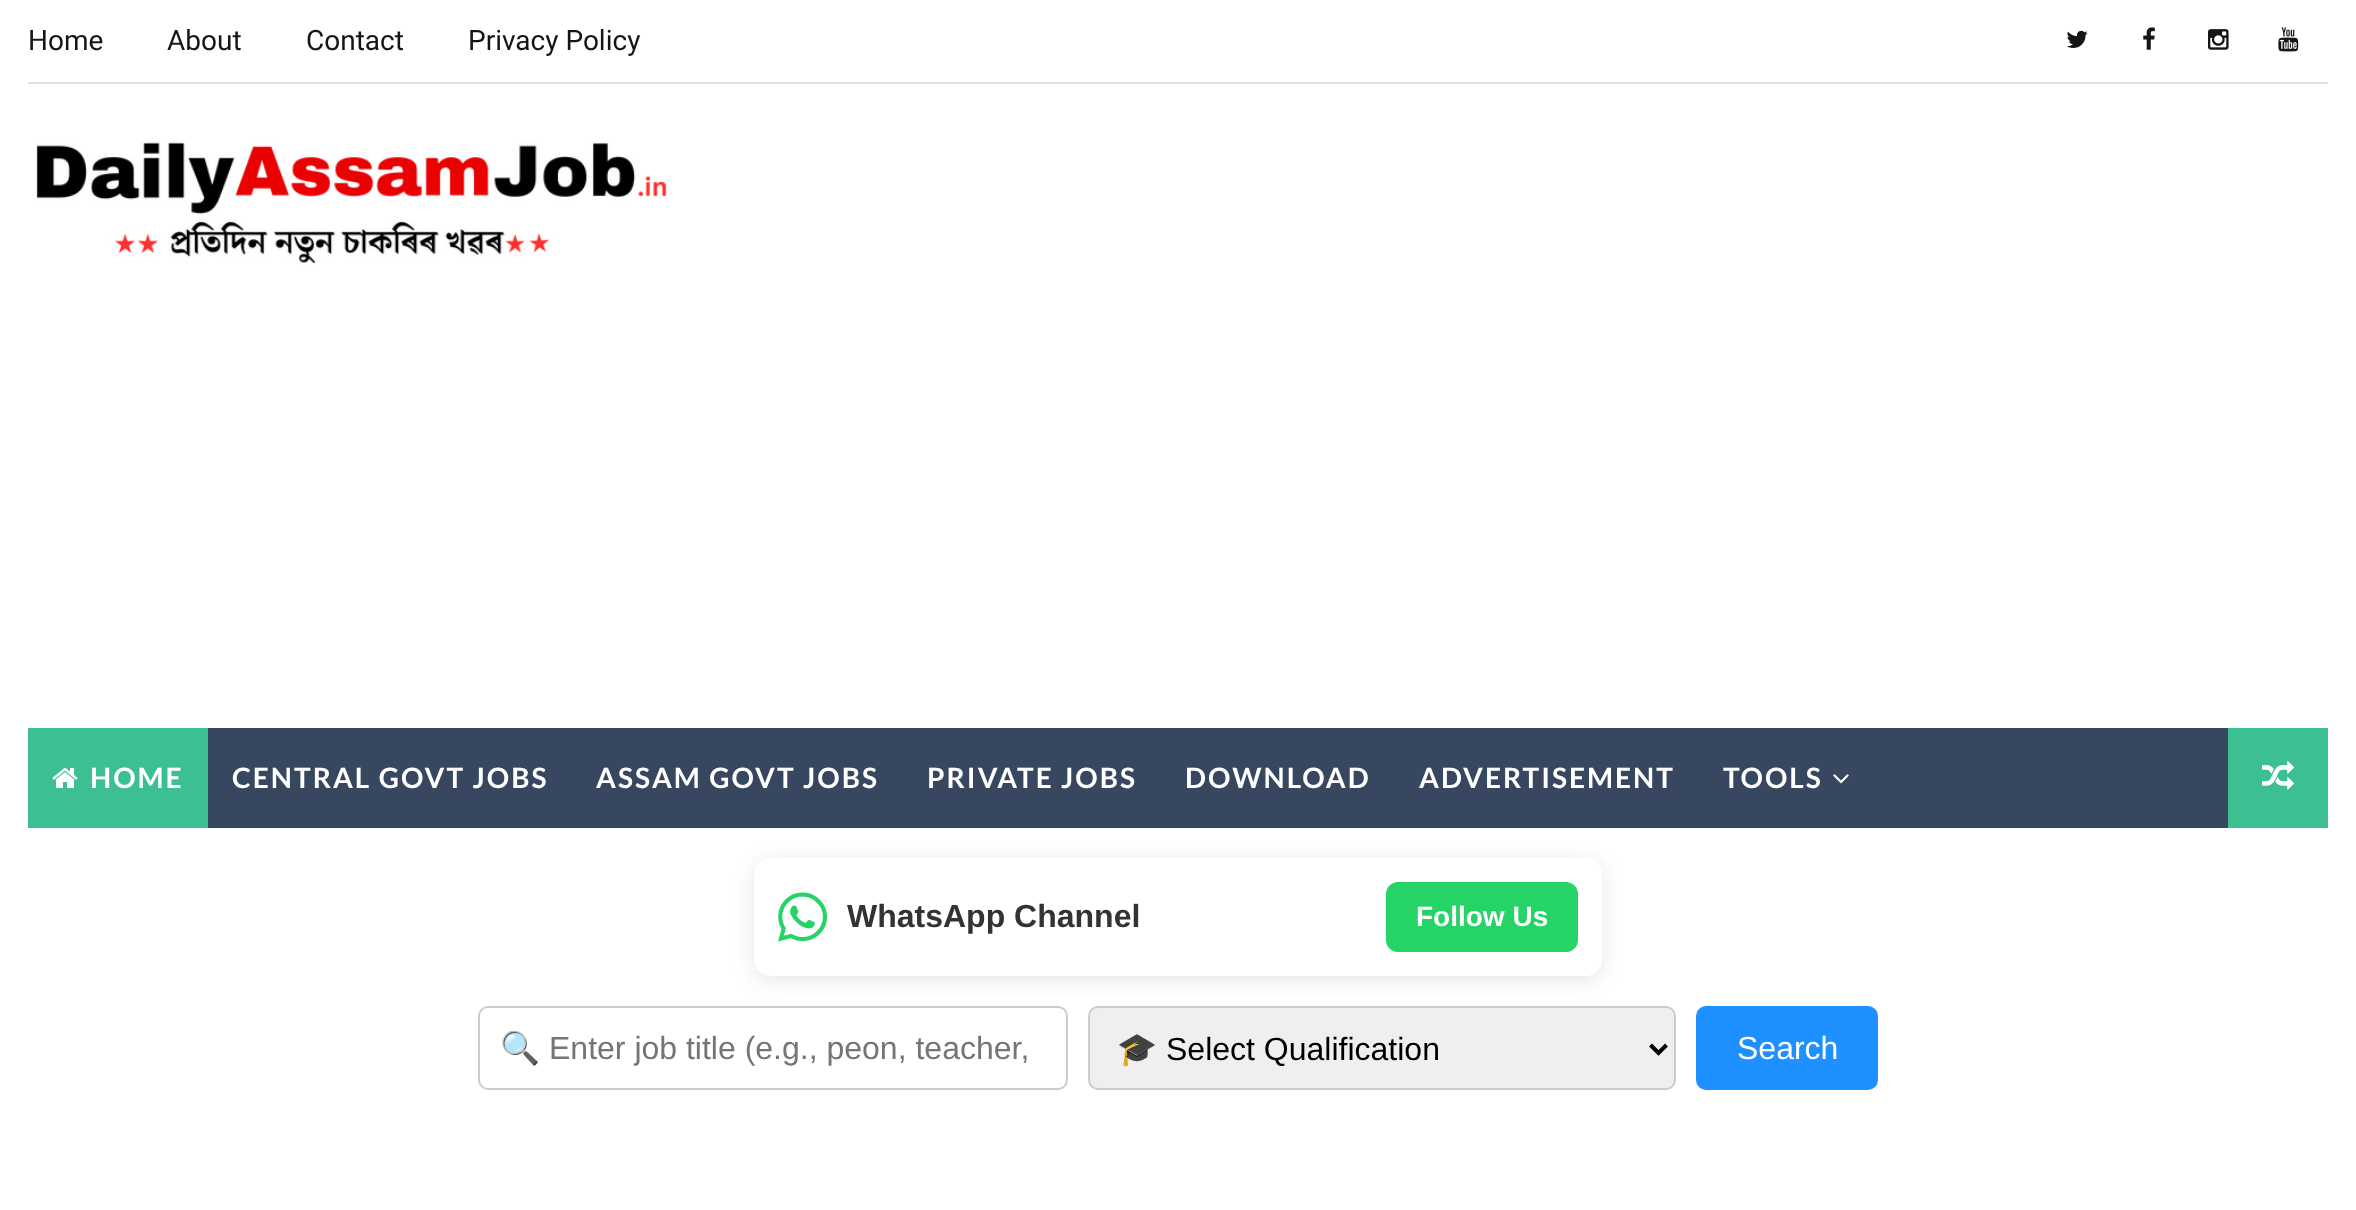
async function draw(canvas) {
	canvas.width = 2356;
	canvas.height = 1210;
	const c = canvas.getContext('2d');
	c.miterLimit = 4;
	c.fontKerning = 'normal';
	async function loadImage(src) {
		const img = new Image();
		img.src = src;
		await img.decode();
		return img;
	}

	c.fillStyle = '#fff';
	c.fillRect(0, 0, 2356, 1210);
	c.fillStyle = '#e0e0e0';
	c.fillRect(28, 82, 2300, 2);
	c.font = '28px Roboto';
	c.fillStyle = '#151515';
	for (const [text, x, y] of [
		['Home', 28, 50],
		['About', 167, 50],
		['Contact', 306, 50],
		['Privacy Policy', 468, 50],
	]) {
		c.fillText(text, x, y);
	}
	c.drawImage(await loadImage('img1.png'), 2066, 30, 22, 18);
	c.drawImage(await loadImage('img2.png'), 2143, 27, 12, 23);
	c.drawImage(await loadImage('img3.png'), 2208, 29, 21, 21);
	c.drawImage(await loadImage('img4.png'), 2278, 27, 21, 25);
	c.drawImage(await loadImage('img5.png'), 36, 142, 631, 123);
	c.fillStyle = '#374760';
	c.fillRect(208, 728, 2020, 100);
	c.fillStyle = '#3cc091';
	c.fillRect(28, 728, 180, 100);
	c.drawImage(await loadImage('img6.png'), 52, 768, 26, 20);
	c.letterSpacing = '2px';
	c.font = 'bold 28px Lato';
	c.fillStyle = '#fff';
	for (const [text, x, y] of [
		['HOME', 90, 788],
		['CENTRAL GOVT JOBS', 232, 788],
		['ASSAM GOVT JOBS', 596, 788],
		['PRIVATE JOBS', 927, 788],
		['DOWNLOAD', 1185, 788],
		['ADVERTISEMENT', 1419, 788],
		['TOOLS', 1723, 788],
	]) {
		c.fillText(text, x, y);
	}
	c.drawImage(await loadImage('img7.png'), 1833, 774, 16, 10);
	c.fillStyle = '#3cc091';
	c.fillRect(2228, 728, 100, 100);
	c.drawImage(await loadImage('img8.png'), 2262, 761, 32, 29);
	c.fillStyle = '#0000001a';
	c.filter = 'blur(10px)';
	c.beginPath();
	c.roundRect(754, 862, 848, 118, 16);
	c.fill();
	c.filter = 'none';
	c.fillStyle = '#fff';
	c.beginPath();
	c.roundRect(754, 858, 848, 118, 16);
	c.fill();
	c.drawImage(await loadImage('img9.png'), 778, 892, 49, 50);
	c.letterSpacing = '0px';
	c.font = 'bold 32px Liberation Sans';
	c.fillStyle = '#333';
	c.fillText('WhatsApp Channel', 847, 927);
	c.fillStyle = '#25d366';
	c.beginPath();
	c.roundRect(1386, 882, 192, 70, 12);
	c.fill();
	c.font = 'bold 28px Liberation Sans';
	c.fillStyle = '#fff';
	c.fillText('Follow Us', 1416, 926);
	c.beginPath();
	c.roundRect(479, 1007, 588, 82, 9);
	c.strokeStyle = '#ccc';
	c.lineWidth = 2;
	c.stroke();
	c.font = '32px Noto Color Emoji';
	c.fillStyle = '#757575';
	c.fillText('🔍', 500, 1059);
	c.font = '32px Liberation Sans';
	c.fillText('Enter job title (e.g., peon, teacher,', 549, 1059);
	c.fillStyle = '#efefef';
	c.beginPath();
	c.roundRect(1089, 1007, 586, 82, 9);
	c.fill();
	c.stroke();
	c.beginPath();
	c.moveTo(1650.5, 1045);
	c.lineTo(1658.5, 1053);
	c.lineTo(1666.5, 1045);
	c.strokeStyle = '#000';
	c.lineWidth = 4;
	c.stroke();
	c.save();
	c.beginPath();
	c.rect(1118, 1030, 504, 38);
	c.clip();
	c.font = '32px Noto Color Emoji';
	c.fillStyle = '#000';
	c.fillText('🎓', 1117, 1060);
	c.restore();
	c.fillStyle = '#000';
	c.fillText('Select Qualification', 1166, 1060);
	c.fillStyle = '#1e90ff';
	c.beginPath();
	c.roundRect(1696, 1006, 182, 84, 10);
	c.fill();
	c.fillStyle = '#fff';
	c.fillText('Search', 1737, 1059);
}

draw(document.querySelector('canvas'));
